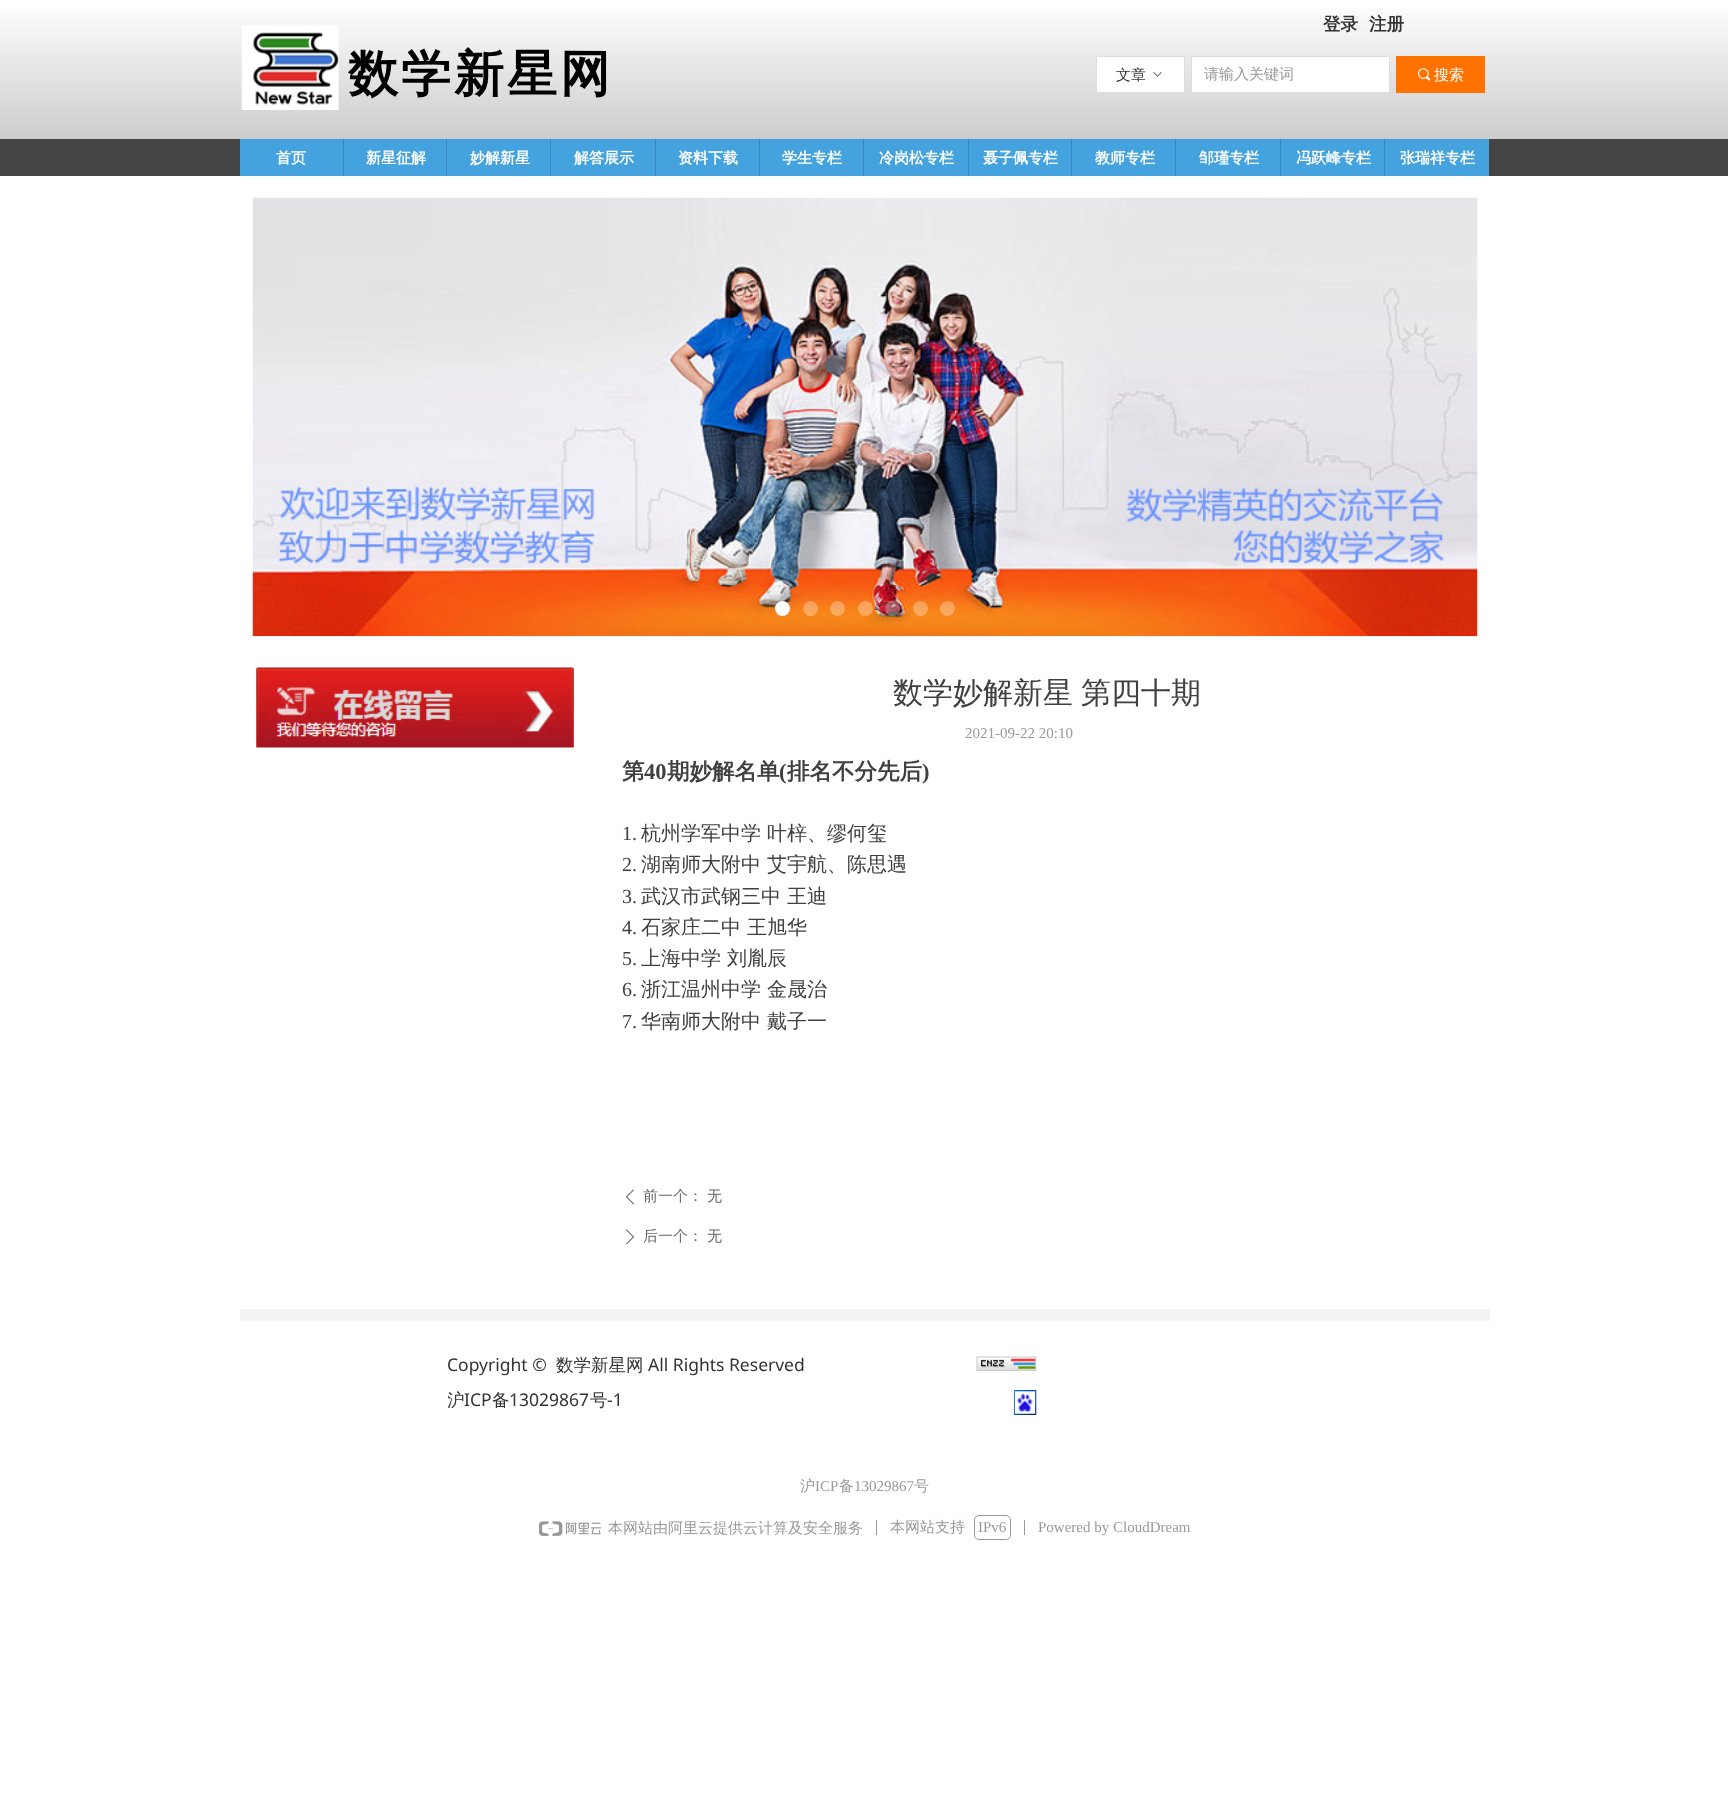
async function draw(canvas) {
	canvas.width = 1728;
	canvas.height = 1801;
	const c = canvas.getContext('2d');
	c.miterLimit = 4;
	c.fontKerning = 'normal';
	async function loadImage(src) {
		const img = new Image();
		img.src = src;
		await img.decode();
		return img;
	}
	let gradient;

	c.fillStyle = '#fff';
	c.fillRect(0, 0, 1728, 1801);
	gradient = c.createLinearGradient(0, 0, 0, 140);
	gradient.addColorStop(0, '#fff');
	gradient.addColorStop(1, '#ccc');
	c.fillStyle = gradient;
	c.fillRect(0, 7, 1728, 132);
	c.drawImage(await loadImage('img1.png'), 241, 25, 98, 85);
	c.letterSpacing = '3px';
	c.font = 'bold 50px WenQuanYi Zen Hei';
	c.fillStyle = '#000';
	c.fillText('数学新星网', 348, 91);
	c.letterSpacing = '0px';
	c.font = 'bold 17.5px WenQuanYi Zen Hei';
	c.fillStyle = '#333';
	c.fillText('登录', 1323, 30);
	c.fillText('注册', 1369, 30);
	c.fillStyle = '#fff';
	c.beginPath();
	c.rect(1096.5, 56.5, 88, 36);
	c.fill();
	c.strokeStyle = '#ddd';
	c.stroke();
	c.font = '500 15px WenQuanYi Zen Hei';
	c.fillStyle = '#333';
	c.fillText('文章', 1116, 80);
	c.drawImage(await loadImage('img2.png'), 1153, 72, 9, 5);
	c.fillStyle = '#fff';
	c.beginPath();
	c.rect(1191.5, 56.5, 198, 36);
	c.fill();
	c.stroke();
	c.fillStyle = '#999';
	c.fillText('请输入关键词', 1204, 79);
	c.fillStyle = '#ff7200';
	c.fillRect(1396, 56, 89, 37);
	c.drawImage(await loadImage('img3.png'), 1418, 68, 13, 13);
	c.fillStyle = '#fff';
	c.fillText('搜索', 1434, 80);
	c.fillStyle = '#444';
	c.fillRect(0, 139, 1728, 37);
	c.fillStyle = '#44a2df';
	c.fillRect(240, 139, 103, 37);
	c.font = 'bold 15px WenQuanYi Zen Hei';
	c.fillStyle = '#fff';
	c.fillText('首页', 276, 163);
	c.fillStyle = '#44a2df';
	c.fillRect(344, 139, 206, 37);
	c.fillStyle = '#3d85c6';
	c.fillRect(343, 139, 1, 37);
	c.fillStyle = '#fff';
	c.fillText('新星征解', 366, 163);
	c.fillStyle = '#3d85c6';
	c.fillRect(446, 139, 1, 37);
	c.fillStyle = '#fff';
	c.fillText('妙解新星', 470, 163);
	c.fillStyle = '#44a2df';
	c.fillRect(551, 139, 104, 37);
	c.fillStyle = '#3d85c6';
	c.fillRect(550, 139, 1, 37);
	c.fillStyle = '#fff';
	c.fillText('解答展示', 574, 163);
	c.fillStyle = '#44a2df';
	c.fillRect(656, 139, 103, 37);
	c.fillStyle = '#3d85c6';
	c.fillRect(655, 139, 1, 37);
	c.fillStyle = '#fff';
	c.fillText('资料下载', 678, 163);
	c.fillStyle = '#44a2df';
	c.fillRect(760, 139, 103, 37);
	c.fillStyle = '#3d85c6';
	c.fillRect(759, 139, 1, 37);
	c.fillStyle = '#fff';
	c.fillText('学生专栏', 782, 163);
	c.fillStyle = '#44a2df';
	c.fillRect(864, 139, 104, 37);
	c.fillStyle = '#3d85c6';
	c.fillRect(863, 139, 1, 37);
	c.fillStyle = '#fff';
	c.fillText('冷岗松专栏', 879, 163);
	c.fillStyle = '#44a2df';
	c.fillRect(969, 139, 206, 37);
	c.fillStyle = '#3d85c6';
	c.fillRect(968, 139, 1, 37);
	c.fillStyle = '#fff';
	c.fillText('聂子佩专栏', 983, 163);
	c.fillStyle = '#3d85c6';
	c.fillRect(1071, 139, 1, 37);
	c.fillStyle = '#fff';
	c.fillText('教师专栏', 1095, 163);
	c.fillStyle = '#44a2df';
	c.fillRect(1176, 139, 104, 37);
	c.fillStyle = '#3d85c6';
	c.fillRect(1175, 139, 1, 37);
	c.fillStyle = '#fff';
	c.fillText('邹瑾专栏', 1199, 163);
	c.fillStyle = '#44a2df';
	c.fillRect(1281, 139, 103, 37);
	c.fillStyle = '#3d85c6';
	c.fillRect(1280, 139, 1, 37);
	c.fillStyle = '#fff';
	c.fillText('冯跃峰专栏', 1296, 163);
	c.fillStyle = '#44a2df';
	c.fillRect(1385, 139, 104, 37);
	c.fillStyle = '#3d85c6';
	c.fillRect(1384, 139, 1, 37);
	c.fillStyle = '#fff';
	c.fillText('张瑞祥专栏', 1400, 163);
	c.drawImage(await loadImage('img4.png'), 252, 197, 1226, 440);
	c.beginPath();
	c.arc(782.5, 608.5, 7.5, 0, 2 * Math.PI);
	c.fill();
	c.fillStyle = '#ffffff4d';
	c.beginPath();
	c.arc(810.5, 608.5, 7.5, 0, 2 * Math.PI);
	c.fill();
	c.beginPath();
	c.arc(837.5, 608.5, 7.5, 0, 2 * Math.PI);
	c.fill();
	c.beginPath();
	c.arc(865.5, 608.5, 7.5, 0, 2 * Math.PI);
	c.fill();
	c.beginPath();
	c.arc(892.5, 608.5, 7.5, 0, 2 * Math.PI);
	c.fill();
	c.beginPath();
	c.arc(920.5, 608.5, 7.5, 0, 2 * Math.PI);
	c.fill();
	c.beginPath();
	c.arc(947.5, 608.5, 7.5, 0, 2 * Math.PI);
	c.fill();
	c.drawImage(await loadImage('img5.png'), 256, 667, 318, 81);
	c.wordSpacing = '-1px';
	c.font = '500 30px WenQuanYi Zen Hei';
	c.fillStyle = '#404040';
	c.fillText('数学妙解新星 第四十期', 893, 703);
	c.wordSpacing = '0px';
	c.font = '15px Liberation Serif';
	c.fillStyle = '#999';
	c.fillText('2021-09-22 20:10', 965, 738);
	c.font = 'bold 22.5px WenQuanYi Zen Hei';
	c.fillStyle = '#404040';
	c.fillText('第', 622, 779);
	c.font = 'bold 22.5px Liberation Serif';
	c.fillText('40', 644, 779);
	c.font = 'bold 22.5px WenQuanYi Zen Hei';
	c.fillText('期妙解名单', 667, 779);
	c.font = 'bold 22.5px Liberation Serif';
	c.fillText('(', 779, 779);
	c.font = 'bold 22.5px WenQuanYi Zen Hei';
	c.fillText('排名不分先后', 787, 779);
	c.font = 'bold 22.5px Liberation Serif';
	c.fillText(')', 922, 779);
	c.font = '20px Liberation Serif';
	c.fillText('1.', 622, 840);
	c.font = '500 20px WenQuanYi Zen Hei';
	c.fillText('杭州学军中学 叶梓、缪何玺', 641, 840);
	c.font = '20px Liberation Serif';
	c.fillText('2.', 622, 871);
	c.font = '500 20px WenQuanYi Zen Hei';
	c.fillText('湖南师大附中 艾宇航、陈思遇', 641, 871);
	c.font = '20px Liberation Serif';
	c.fillText('3.', 622, 903);
	c.font = '500 20px WenQuanYi Zen Hei';
	c.fillText('武汉市武钢三中 王迪', 641, 903);
	c.font = '20px Liberation Serif';
	c.fillText('4.', 622, 934);
	c.font = '500 20px WenQuanYi Zen Hei';
	c.fillText('石家庄二中 王旭华', 641, 934);
	c.font = '20px Liberation Serif';
	c.fillText('5.', 622, 965);
	c.font = '500 20px WenQuanYi Zen Hei';
	c.fillText('上海中学 刘胤辰', 641, 965);
	c.font = '20px Liberation Serif';
	c.fillText('6.', 622, 996);
	c.font = '500 20px WenQuanYi Zen Hei';
	c.fillText('浙江温州中学 金晟治', 641, 996);
	c.font = '20px Liberation Serif';
	c.fillText('7.', 622, 1028);
	c.font = '500 20px WenQuanYi Zen Hei';
	c.fillText('华南师大附中 戴子一', 641, 1028);
	c.drawImage(await loadImage('img6.png'), 626, 1189, 8, 16);
	c.font = '500 15px WenQuanYi Zen Hei';
	c.fillStyle = '#666';
	c.fillText('前一个：', 643, 1201);
	c.fillText('无', 707, 1201);
	c.drawImage(await loadImage('img7.png'), 626, 1229, 8, 16);
	c.fillText('后一个：', 643, 1241);
	c.fillText('无', 707, 1241);
	c.fillStyle = '#f3f3f3';
	c.fillRect(240, 1309, 1250, 12);
	c.font = '17.5px Noto Sans';
	c.fillStyle = '#333';
	c.fillText('Copyright ©', 447, 1371);
	c.font = '500 17.5px WenQuanYi Zen Hei';
	c.fillText('数学新星网', 556, 1371);
	c.font = '17.5px Noto Sans';
	c.fillText('All Rights Reserved', 648, 1371);
	c.save();
	c.beginPath();
	c.rect(448, 1356, 450, 69);
	c.clip();
	c.font = '500 17.5px WenQuanYi Zen Hei';
	c.fillText('沪', 447, 1406);
	c.restore();
	c.fillText('ICP', 464, 1406);
	c.font = '500 17.5px WenQuanYi Zen Hei';
	c.fillText('备', 492, 1406);
	c.font = '17.5px Noto Sans';
	c.fillText('13029867', 509, 1406);
	c.font = '500 17.5px WenQuanYi Zen Hei';
	c.fillText('号', 590, 1406);
	c.font = '17.5px Noto Sans';
	c.fillText('-1', 607, 1406);
	c.drawImage(await loadImage('img8.png'), 976, 1356, 61, 15);
	c.drawImage(await loadImage('img9.png'), 1013, 1390, 24, 25);
	c.font = '500 15px WenQuanYi Zen Hei';
	c.fillStyle = '#999';
	c.fillText('沪', 800, 1491);
	c.font = '15px Liberation Serif';
	c.fillText('ICP', 815, 1491);
	c.font = '500 15px WenQuanYi Zen Hei';
	c.fillText('备', 839, 1491);
	c.font = '15px Liberation Serif';
	c.fillText('13029867', 854, 1491);
	c.font = '500 15px WenQuanYi Zen Hei';
	c.fillText('号', 914, 1491);
	c.drawImage(await loadImage('img10.png'), 539, 1521, 62, 15);
	c.fillText('本网站由阿里云提供云计算及安全服务', 608, 1533);
	c.fillStyle = '#989898';
	c.fillRect(876, 1520, 1, 15);
	c.fillStyle = '#999';
	c.fillText('本网站支持', 890, 1532);
	c.beginPath();
	c.roundRect(974.5, 1515.5, 36, 24, 4.5);
	c.strokeStyle = '#989898';
	c.stroke();
	c.font = '15px Liberation Serif';
	c.fillText('IPv6', 978, 1532);
	c.fillStyle = '#989898';
	c.fillRect(1024, 1520, 1, 15);
	c.fillStyle = '#999';
	c.fillText('Powered by CloudDream', 1038, 1532);
}

draw(document.querySelector('canvas'));
